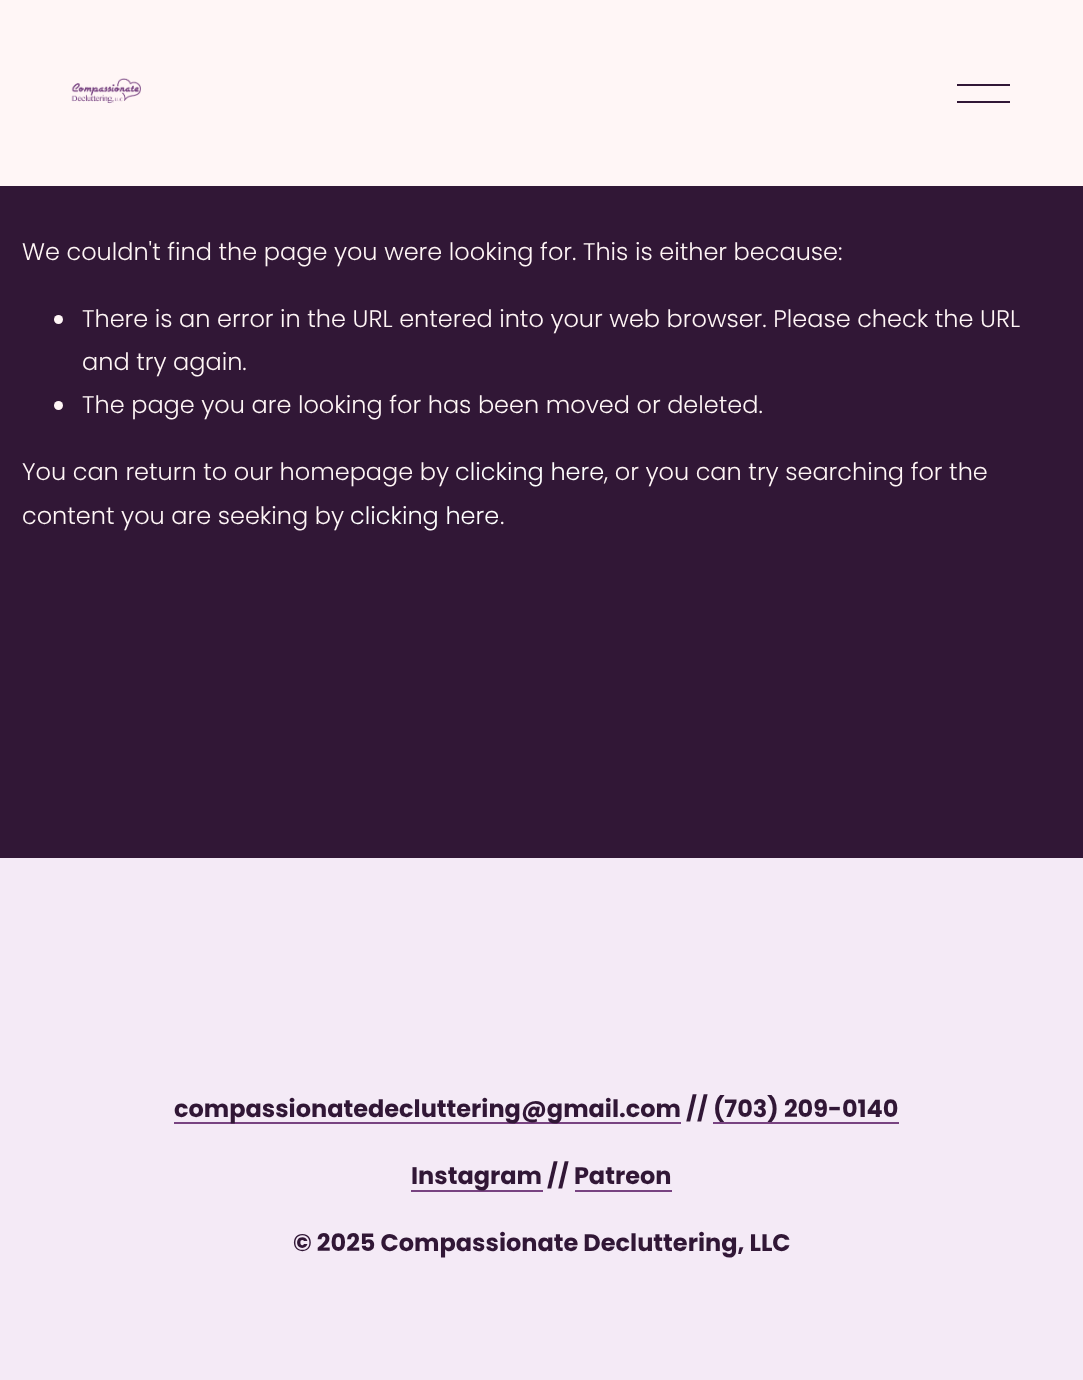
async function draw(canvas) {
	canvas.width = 1083;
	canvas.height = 1380;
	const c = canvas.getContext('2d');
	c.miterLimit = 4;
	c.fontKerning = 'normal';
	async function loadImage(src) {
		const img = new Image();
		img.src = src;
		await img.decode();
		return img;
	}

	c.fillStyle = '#311736';
	c.fillRect(0, 0, 1083, 1380);
	c.fillStyle = '#fff6f6';
	c.fillRect(0, 0, 1083, 186);
	c.drawImage(await loadImage('img1.png'), 71, 78, 70, 26);
	c.fillStyle = '#311736';
	c.fillRect(957, 84, 53, 2);
	c.fillRect(957, 101, 53, 2);
	c.font = '300 24px Poppins';
	c.fillStyle = '#fff6f6';
	c.fillText('We couldn\'t find the page you were looking for. This is either because:', 22, 260);
	c.beginPath();
	c.arc(58.5, 319.5, 4.5, 0, 2 * Math.PI);
	c.fill();
	c.fillText('There is an error in the URL entered into your web browser. Please check the URL', 82, 327);
	c.fillText('and try again.', 82, 370);
	c.beginPath();
	c.arc(58.5, 405.5, 4.5, 0, 2 * Math.PI);
	c.fill();
	c.fillText('The page you are looking for has been moved or deleted.', 82, 413);
	c.fillText('You can return to our homepage by', 22, 480);
	c.fillStyle = '#fff';
	c.fillText('clicking here', 455, 480);
	c.fillStyle = '#fff6f6';
	c.fillText(', or you can try searching for the', 604, 480);
	c.fillText('content you are seeking by', 22, 524);
	c.fillStyle = '#fff';
	c.fillText('clicking here', 350, 524);
	c.fillStyle = '#fff6f6';
	c.fillText('.', 500, 524);
	c.fillStyle = '#f4eaf6';
	c.fillRect(0, 858, 1083, 522);
	c.fillStyle = '#784381';
	c.fillRect(174, 1122, 507, 2);
	c.font = 'bold 24px Poppins';
	c.fillStyle = '#311736';
	c.fillText('compassionatedecluttering@gmail.com // (703) 209-0140', 174, 1117);
	c.fillStyle = '#784381';
	c.fillRect(713, 1122, 186, 2);
	c.fillRect(411, 1190, 132, 2);
	c.fillStyle = '#311736';
	c.fillText('Instagram // Patreon', 411, 1184);
	c.fillStyle = '#784381';
	c.fillRect(575, 1190, 97, 2);
	c.fillStyle = '#311736';
	c.fillText('© 2025 Compassionate Decluttering, LLC', 293, 1251);
}

draw(document.querySelector('canvas'));
